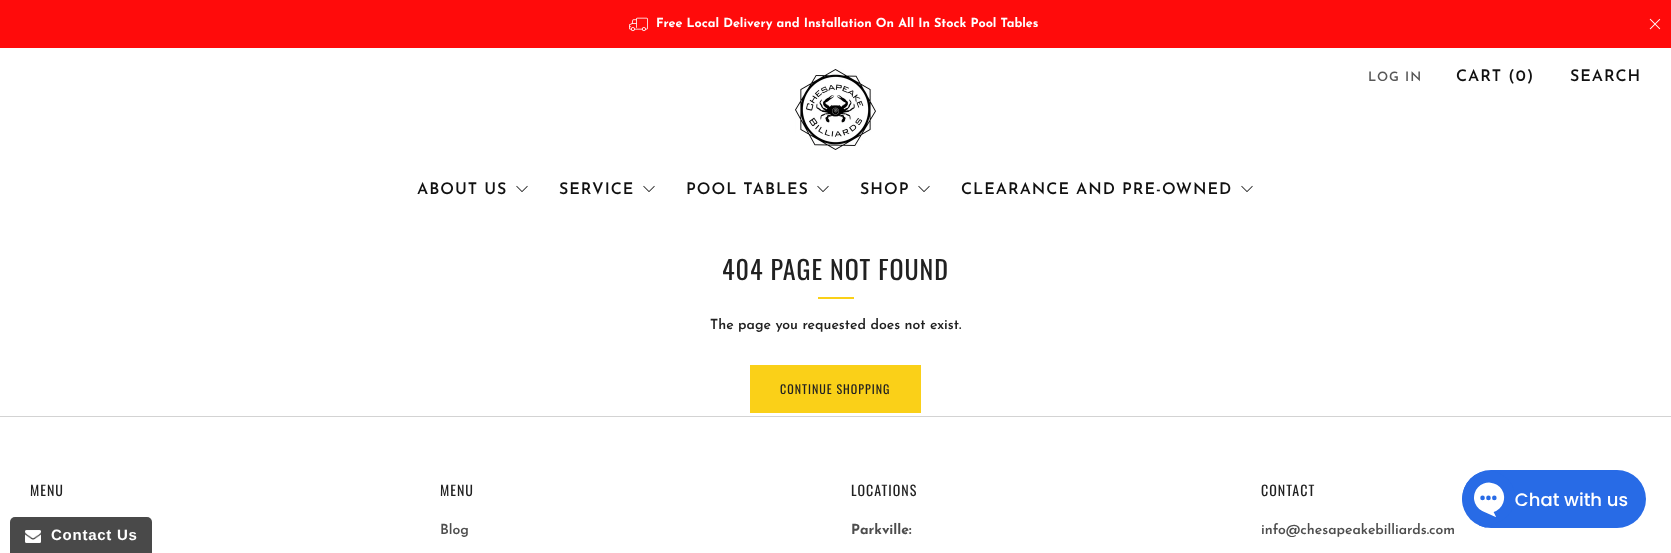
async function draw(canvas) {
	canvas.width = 1671;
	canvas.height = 553;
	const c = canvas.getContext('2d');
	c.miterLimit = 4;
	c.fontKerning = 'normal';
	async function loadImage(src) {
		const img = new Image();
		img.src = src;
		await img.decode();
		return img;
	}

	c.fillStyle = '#fff';
	c.fillRect(0, 0, 1671, 553);
	c.fillStyle = '#ff0b0b';
	c.fillRect(0, 0, 1671, 48);
	c.drawImage(await loadImage('img1.png'), 629, 17, 19, 15);
	c.font = 'bold 12.6px Josefin Sans';
	c.fillStyle = '#fff';
	c.fillText('Free Local Delivery and Installation On All In Stock Pool Tables', 656, 27);
	c.drawImage(await loadImage('img2.png'), 1649, 18, 12, 12);
	c.letterSpacing = '1px';
	c.font = '600 13px Josefin Sans';
	c.fillStyle = '#585858';
	c.fillText('LOG IN', 1368, 81);
	c.font = '600 16px Josefin Sans';
	c.fillStyle = '#111';
	for (const [text, x, y] of [
		['CART (0)', 1456, 81],
		['SEARCH', 1570, 81],
		['ABOUT US', 417, 194],
	]) {
		c.fillText(text, x, y);
	}
	c.drawImage(await loadImage('img3.png'), 516, 185, 12, 7);
	c.fillText('SERVICE', 559, 194);
	c.drawImage(await loadImage('img3.png'), 643, 185, 12, 7);
	c.fillText('POOL TABLES', 686, 194);
	c.drawImage(await loadImage('img3.png'), 817, 185, 12, 7);
	c.fillText('SHOP', 860, 194);
	c.drawImage(await loadImage('img3.png'), 918, 185, 12, 7);
	c.fillText('CLEARANCE AND PRE-OWNED', 961, 194);
	c.drawImage(await loadImage('img3.png'), 1241, 185, 12, 7);
	c.drawImage(await loadImage('img4.png'), 795, 69, 81, 81);
	c.font = '26px Oswald';
	c.fillStyle = '#212121';
	c.fillText('404 PAGE NOT FOUND', 722, 280);
	c.fillStyle = '#fad018';
	c.fillRect(818, 297, 36, 2);
	c.letterSpacing = '0px';
	c.font = '600 14px Josefin Sans';
	c.fillStyle = '#212121';
	c.fillText('The page you requested does not exist.', 710, 329);
	c.fillStyle = '#fad018';
	c.fillRect(750, 365, 171, 48);
	c.letterSpacing = '1px';
	c.font = '12px Oswald';
	c.fillStyle = '#212121';
	c.fillText('CONTINUE SHOPPING', 780, 394);
	c.fillStyle = '#d3d3d3';
	c.fillRect(0, 416, 1671, 1);
	c.font = '14px Oswald';
	c.fillStyle = '#212121';
	c.fillText('MENU', 30, 496);
	c.fillText('MENU', 440, 496);
	c.letterSpacing = '0px';
	c.font = '600 14px Josefin Sans';
	c.fillStyle = '#4d4d4d';
	c.fillText('Blog', 440, 534);
	c.letterSpacing = '1px';
	c.font = '14px Oswald';
	c.fillStyle = '#212121';
	c.fillText('LOCATIONS', 851, 496);
	c.letterSpacing = '0px';
	c.font = 'bold 14px Josefin Sans';
	c.fillStyle = '#4d4d4d';
	c.fillText('Parkville:', 851, 534);
	c.letterSpacing = '1px';
	c.font = '14px Oswald';
	c.fillStyle = '#212121';
	c.fillText('CONTACT', 1261, 496);
	c.letterSpacing = '0px';
	c.font = '600 14px Josefin Sans';
	c.fillStyle = '#4d4d4d';
	c.fillText('info@chesapeakebilliards.com', 1261, 534);
	c.drawImage(await loadImage('img5.png'), 1462, 470, 184, 58);
	c.fillStyle = '#494949';
	c.beginPath();
	c.roundRect(10, 517, 142, 36, [5, 5, 0, 0]);
	c.fill();
	c.drawImage(await loadImage('img6.png'), 25, 530, 16, 13);
	c.letterSpacing = '0.75px';
	c.font = 'bold 15px Liberation Sans';
	c.fillStyle = '#fff';
	c.fillText('Contact Us', 51, 540);
}

draw(document.querySelector('canvas'));
